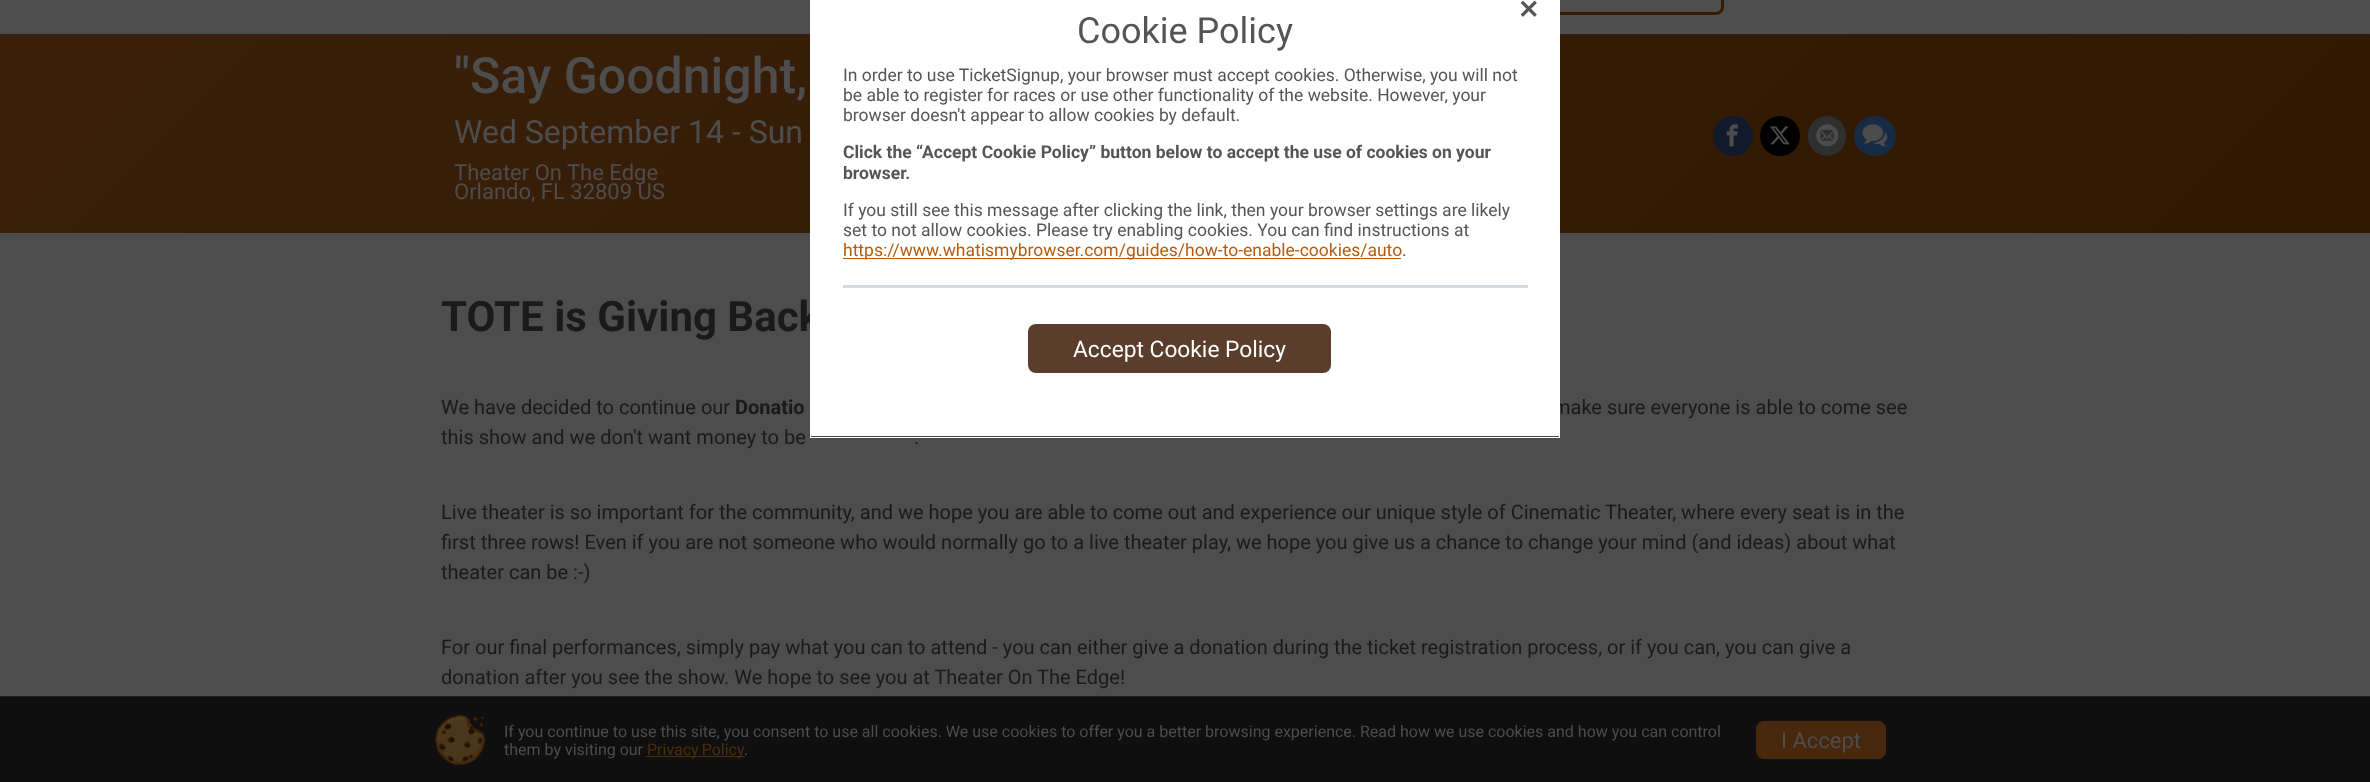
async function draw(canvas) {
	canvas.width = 2370;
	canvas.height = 782;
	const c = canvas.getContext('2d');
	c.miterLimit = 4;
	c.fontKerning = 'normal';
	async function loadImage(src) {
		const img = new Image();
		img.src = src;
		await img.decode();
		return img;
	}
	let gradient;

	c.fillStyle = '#4d4d4d';
	c.fillRect(0, 0, 2370, 782);
	c.beginPath();
	c.roundRect(1532.5, -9.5, 190, 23, 6.5);
	c.strokeStyle = '#361c04';
	c.lineWidth = 3;
	c.stroke();
	gradient = c.createLinearGradient(1827, 775, 543, -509);
	gradient.addColorStop(0, '#301803');
	gradient.addColorStop(1, '#3a200a');
	c.fillStyle = gradient;
	c.fillRect(0, 34, 2370, 199);
	c.font = 'bold 42px Roboto';
	c.fillStyle = '#1a1a1a';
	c.fillText('TOTE is Giving Back', 441, 331);
	c.font = '20px Roboto';
	c.fillText('make sure everyone is able to come see', 1553, 414);
	c.strokeStyle = '#fff';
	c.lineWidth = 1;
	c.strokeRect(810.5, -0.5, 749, 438);
	c.fillStyle = '#fff';
	c.fillRect(811, 0, 748, 436);
	c.drawImage(await loadImage('img1.png'), 1520, 0, 17, 17);
	c.font = '36px Roboto';
	c.fillStyle = '#555';
	c.fillText('Cookie Policy', 1077, 43);
	c.font = '17.5px Roboto';
	for (const [text, x, y] of [
		['In order to use TicketSignup, your browser must accept cookies. Otherwise, you will not', 843, 81],
		['be able to register for races or use other functionality of the website. However, your', 843, 101],
		['browser doesn\'t appear to allow cookies by default.', 843, 121],
	]) {
		c.fillText(text, x, y);
	}
	c.font = 'bold 17.5px Roboto';
	c.fillText('Click the “Accept Cookie Policy” button below to accept the use of cookies on your', 843, 158);
	c.fillText('browser.', 843, 179);
	c.font = '17.5px Roboto';
	c.fillText('If you still see this message after clicking the link, then your browser settings are likely', 843, 216);
	c.fillText('set to not allow cookies. Please try enabling cookies. You can find instructions at', 843, 236);
	c.fillStyle = '#b55c0d';
	c.fillRect(843, 258, 558, 1);
	c.fillText('https://www.whatismybrowser.com/guides/how-to-enable-cookies/auto', 843, 256);
	c.fillStyle = '#555';
	c.fillText('.', 1402, 256);
	c.fillStyle = '#d3dbdf';
	c.fillRect(843, 285, 685, 3);
	c.fillStyle = '#5a3d2b';
	c.beginPath();
	c.roundRect(1028, 324, 303, 49, 8);
	c.fill();
	c.font = '22.75px Roboto';
	c.fillStyle = '#fff';
	c.fillText('Accept Cookie Policy', 1073, 357);
	c.font = '500 50px Roboto';
	c.fillStyle = '#4d4d4d';
	c.fillText('"Say Goodnight,', 454, 93);
	c.font = '32px Roboto';
	c.fillText('Wed September 14 - Sun', 454, 143);
	c.font = '22px Roboto';
	c.fillText('Theater On The Edge', 454, 180);
	c.fillText('Orlando, FL 32809 US', 454, 199);
	c.fillStyle = '#11192d';
	c.beginPath();
	c.arc(1733, 136, 20, 0, 2 * Math.PI);
	c.fill();
	c.drawImage(await loadImage('img2.png'), 1726, 124, 12, 23);
	c.fillStyle = '#000';
	c.beginPath();
	c.arc(1780, 136, 20, 0, 2 * Math.PI);
	c.fill();
	c.drawImage(await loadImage('img3.png'), 1770, 126, 20, 19);
	c.fillStyle = '#2f2f2f';
	c.beginPath();
	c.roundRect(1808, 116, 38, 40, 19);
	c.fill();
	c.drawImage(await loadImage('img4.png'), 1816, 124, 23, 23);
	c.fillStyle = '#172c44';
	c.beginPath();
	c.ellipse(1875, 136, 21, 20, 0, 0, 2 * Math.PI);
	c.fill();
	c.drawImage(await loadImage('img5.png'), 1862, 124, 26, 23);
	c.font = '20px Roboto';
	c.fillStyle = '#1a1a1a';
	c.fillText('We have decided to continue our', 441, 414);
	c.font = 'bold 20px Roboto';
	c.fillText('Donatio', 735, 414);
	c.font = '20px Roboto';
	for (const [text, x, y] of [
		['this show and we don\'t want money to be', 441, 444],
		['.', 914, 444],
		['Live theater is so important for the community, and we hope you are able to come out and experience our unique style of Cinematic Theater, where every seat is in the', 441, 519],
		['first three rows! Even if you are not someone who would normally go to a live theater play, we hope you give us a chance to change your mind (and ideas) about what', 441, 549],
		['theater can be :-)', 441, 579],
		['For our final performances, simply pay what you can to attend - you can either give a donation during the ticket registration process, or if you can, you can give a', 441, 654],
		['donation after you see the show. We hope to see you at Theater On The Edge!', 441, 684],
	]) {
		c.fillText(text, x, y);
	}
	c.fillStyle = '#0f0f0f';
	c.fillRect(0, 697, 2370, 85);
	c.fillStyle = '#1f1f1f';
	c.fillRect(0, 696, 2370, 1);
	c.drawImage(await loadImage('img6.png'), 435, 715, 50, 51);
	c.font = '16px Roboto';
	c.fillStyle = '#4d4d4d';
	c.fillText('If you continue to use this site, you consent to use all cookies. We use cookies to offer you a better browsing experience. Read how we use cookies and how you can control', 504, 737);
	c.fillText('them by visiting our', 504, 755);
	c.fillStyle = '#4c2e0b';
	c.fillRect(646, 756, 99, 1);
	c.wordSpacing = '-1px';
	c.fillText('Privacy Policy', 647, 755);
	c.wordSpacing = '0px';
	c.fillStyle = '#4d4d4d';
	c.fillText('.', 744, 755);
	c.fillStyle = '#48280c';
	c.beginPath();
	c.roundRect(1756, 721, 130, 38, 8);
	c.fill();
	c.font = '22px Roboto';
	c.fillStyle = '#4d4d4d';
	c.fillText('I Accept', 1781, 748);
}

draw(document.querySelector('canvas'));
